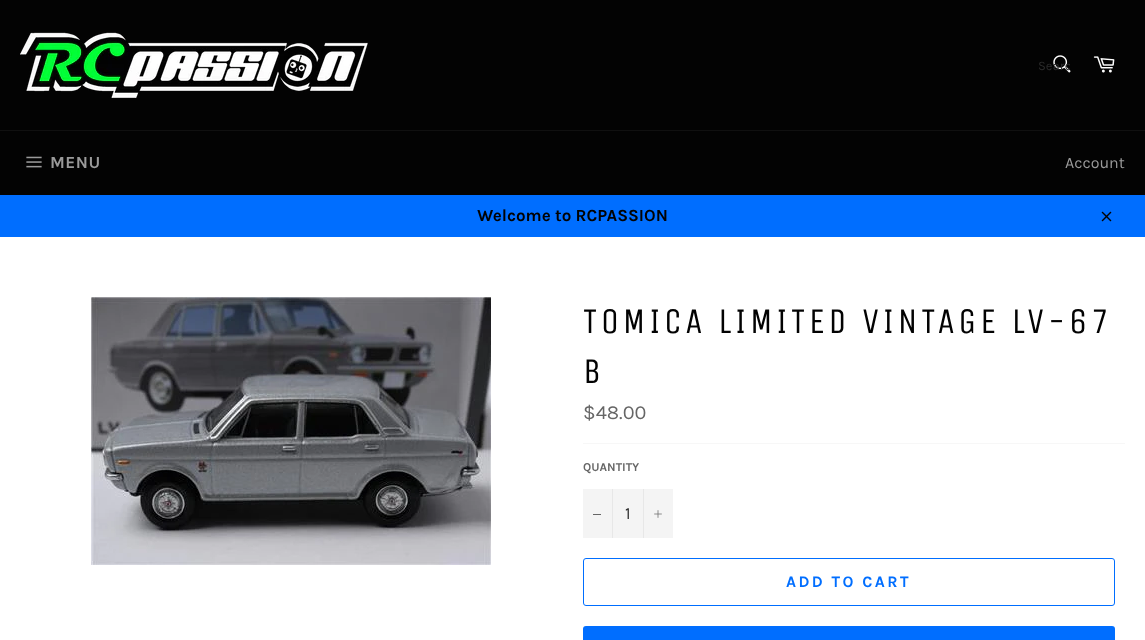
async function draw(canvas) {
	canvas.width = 1145;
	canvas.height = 640;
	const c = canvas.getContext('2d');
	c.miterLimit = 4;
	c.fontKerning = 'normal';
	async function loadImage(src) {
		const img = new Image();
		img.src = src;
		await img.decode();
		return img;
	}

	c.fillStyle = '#030303';
	c.fillRect(0, 0, 1145, 640);
	c.drawImage(await loadImage('img1.png'), 20, 32, 348, 66);
	c.drawImage(await loadImage('img2.png'), 1053, 55, 18, 18);
	c.save();
	c.beginPath();
	c.rect(1038, 58, 32, 15);
	c.clip();
	c.font = '13px Karla';
	c.fillStyle = '#2b2b2b';
	c.fillText('Searc', 1038, 70);
	c.restore();
	c.drawImage(await loadImage('img3.png'), 1093, 56, 22, 17);
	c.fillStyle = '#101010';
	c.fillRect(0, 130, 1145, 1);
	c.drawImage(await loadImage('img4.png'), 26, 156, 16, 12);
	c.letterSpacing = '0.5px';
	c.font = 'bold 17px Karla';
	c.fillStyle = '#9a9a9a';
	c.fillText('MENU', 50, 168);
	c.letterSpacing = '0px';
	c.font = '16px Karla';
	c.fillText('Account', 1065, 168);
	c.fillStyle = '#006eff';
	c.fillRect(0, 195, 1145, 42);
	c.font = 'bold 17px Karla';
	c.fillStyle = '#020202';
	c.fillText('Welcome to RCPASSION', 477, 221);
	c.drawImage(await loadImage('img5.png'), 1101, 211, 11, 11);
	c.fillStyle = '#fff';
	c.fillRect(0, 237, 1145, 403);
	c.drawImage(await loadImage('img6.png'), 91, 297, 400, 268);
	c.letterSpacing = '3.6px';
	c.font = '36px Unica One';
	c.fillStyle = '#020202';
	c.fillText('TOMICA LIMITED VINTAGE LV-67', 583, 333);
	c.fillText('B', 583, 383);
	c.letterSpacing = '0px';
	c.font = '20px Karla';
	c.fillStyle = '#666';
	c.fillText('$48.00', 583, 419);
	c.fillStyle = '#f7f7f7';
	c.fillRect(583, 443, 542, 1);
	c.font = 'bold 12px Karla';
	c.fillStyle = '#666';
	c.fillText('QUANTITY', 583, 471);
	for (const [x, y, w, h, color] of [
		[583, 489, 90, 49, '#f4f4f4'],
		[612, 489, 1, 49, '#e7e7e7'],
		[593, 514, 8, 1, '#666'],
	]) {
		c.fillStyle = color;
		c.fillRect(x, y, w, h);
	}
	c.font = '17px Karla';
	c.fillStyle = '#333';
	c.fillText('1', 625, 519);
	c.fillStyle = '#e7e7e7';
	c.fillRect(643, 489, 1, 49);
	c.drawImage(await loadImage('img7.png'), 654, 510, 8, 8);
	c.beginPath();
	c.roundRect(583.5, 558.5, 531, 47, 2.5);
	c.strokeStyle = '#006eff';
	c.stroke();
	c.letterSpacing = '2.4px';
	c.font = 'bold 16px Karla';
	c.fillStyle = '#006eff';
	c.fillText('ADD TO CART', 786, 587);
	c.beginPath();
	c.roundRect(583, 626, 532, 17, 3);
	c.fill();
}

draw(document.querySelector('canvas'));
